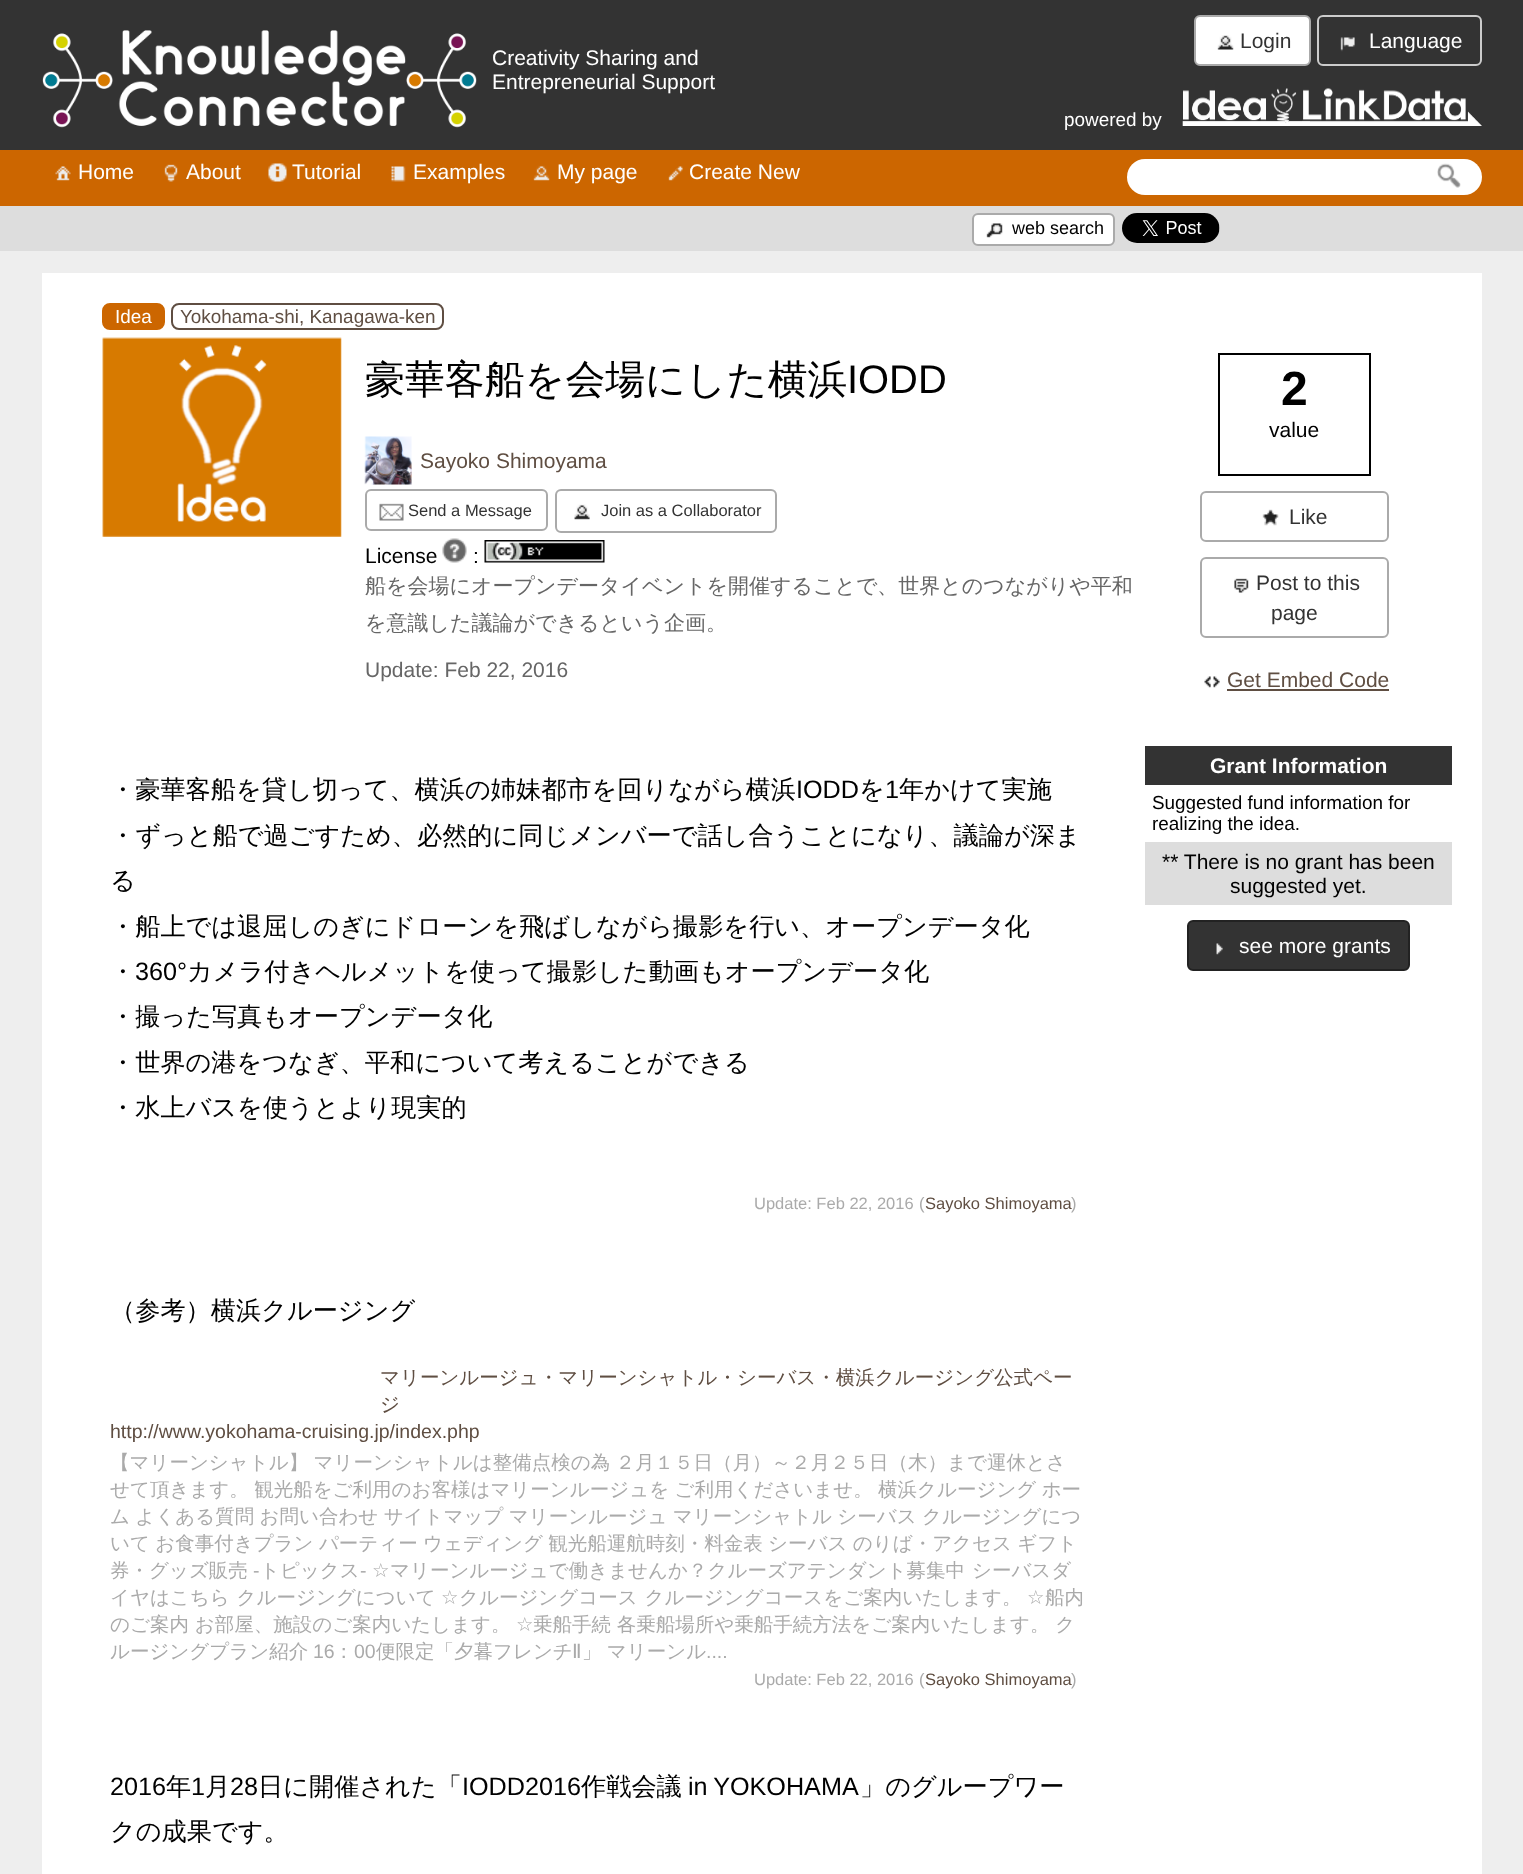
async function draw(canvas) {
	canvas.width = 1523;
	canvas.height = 1874;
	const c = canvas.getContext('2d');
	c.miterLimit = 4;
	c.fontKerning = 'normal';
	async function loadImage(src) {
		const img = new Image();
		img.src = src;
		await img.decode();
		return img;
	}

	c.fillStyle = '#333';
	c.fillRect(0, 0, 1523, 1874);
	c.drawImage(await loadImage('img1.png'), 42, 30, 435, 98);
	c.font = '21px Liberation Sans';
	c.fillStyle = '#fff';
	c.fillText('Creativity Sharing and', 492, 65);
	c.fillText('Entrepreneurial Support', 492, 89);
	c.beginPath();
	c.roundRect(1195, 16, 115, 49, 5);
	c.fill();
	c.strokeStyle = '#aaa';
	c.lineWidth = 2;
	c.stroke();
	c.drawImage(await loadImage('img2.png'), 1217, 35, 17, 15);
	c.fillStyle = '#333';
	c.fillText('Login', 1240, 48);
	c.beginPath();
	c.roundRect(1318, 16, 163, 49, 5);
	c.strokeStyle = '#ccc';
	c.stroke();
	c.drawImage(await loadImage('img3.png'), 1340, 37, 15, 15);
	c.fillStyle = '#fff';
	c.fillText('Language', 1369, 48);
	c.font = '18.9px Liberation Sans';
	c.fillText('powered by', 1064, 126);
	c.drawImage(await loadImage('img4.png'), 1182, 88, 300, 38);
	c.fillStyle = '#c60';
	c.fillRect(0, 150, 1523, 56);
	c.drawImage(await loadImage('img5.png'), 55, 166, 16, 15);
	c.font = '21px Liberation Sans';
	c.fillStyle = '#fff';
	c.fillText('Home', 78, 179);
	c.drawImage(await loadImage('img6.png'), 164, 164, 14, 18);
	c.fillText('About', 186, 179);
	c.drawImage(await loadImage('img7.png'), 268, 163, 19, 19);
	c.fillText('Tutorial', 292, 179);
	c.drawImage(await loadImage('img8.png'), 391, 166, 15, 16);
	c.fillText('Examples', 413, 179);
	c.drawImage(await loadImage('img9.png'), 533, 165, 17, 16);
	c.fillText('My page', 557, 179);
	c.drawImage(await loadImage('img10.png'), 668, 166, 15, 15);
	c.fillText('Create New', 689, 179);
	c.beginPath();
	c.roundRect(1127, 159, 355, 36, 18);
	c.fill();
	c.drawImage(await loadImage('img11.png'), 1437, 163, 24, 25);
	c.fillStyle = '#ddd';
	c.fillRect(0, 206, 1523, 45);
	c.fillStyle = '#fff';
	c.beginPath();
	c.roundRect(973, 214, 141, 31, 5);
	c.fill();
	c.strokeStyle = '#aaa';
	c.stroke();
	c.drawImage(await loadImage('img12.png'), 986, 223, 17, 15);
	c.font = '18px Liberation Sans';
	c.fillStyle = '#000';
	c.fillText('web search', 1012, 234);
	c.drawImage(await loadImage('img13.png'), 1122, 213, 98, 30);
	c.fillStyle = '#eee';
	c.fillRect(0, 251, 1523, 1623);
	c.fillStyle = '#fff';
	c.fillRect(42, 273, 1440, 1601);
	c.fillStyle = '#c60';
	c.beginPath();
	c.roundRect(103, 304, 61, 25, 7);
	c.fill();
	c.strokeStyle = '#c60';
	c.stroke();
	c.font = '18.9px Liberation Sans';
	c.fillStyle = '#fff';
	c.fillText('Idea', 115, 323);
	c.beginPath();
	c.roundRect(172, 304, 271, 25, 7);
	c.strokeStyle = '#5f4e42';
	c.stroke();
	c.fillStyle = '#5f4e42';
	c.fillText('Yokohama-shi, Kanagawa-ken', 180, 323);
	c.drawImage(await loadImage('img14.png'), 102, 337, 240, 200);
	c.font = '500 39.9px WenQuanYi Zen Hei';
	c.fillStyle = '#000';
	c.fillText('豪華客船を会場にした横浜', 365, 393);
	c.font = '39.9px Liberation Sans';
	c.fillText('IODD', 847, 393);
	c.drawImage(await loadImage('img15.png'), 364, 436, 48, 49);
	c.font = '21px Liberation Sans';
	c.fillStyle = '#5f4e42';
	c.fillText('Sayoko Shimoyama', 420, 468);
	c.beginPath();
	c.roundRect(366, 490, 181, 40, 5);
	c.strokeStyle = '#aaa';
	c.stroke();
	c.drawImage(await loadImage('img16.png'), 379, 503, 25, 18);
	c.font = '16.5px Liberation Sans';
	c.fillStyle = '#333';
	c.fillText('Send a Message', 408, 516);
	c.beginPath();
	c.roundRect(556, 490, 220, 42, 5);
	c.stroke();
	c.drawImage(await loadImage('img17.png'), 574, 504, 16, 16);
	c.fillText('Join as a Collaborator', 601, 516);
	c.font = '21px Liberation Sans';
	c.fillStyle = '#000';
	c.fillText('License', 365, 563);
	c.drawImage(await loadImage('img18.png'), 442, 538, 25, 25);
	c.fillText(':', 473, 563);
	c.drawImage(await loadImage('img19.png'), 484, 540, 121, 23);
	c.font = '500 21px WenQuanYi Zen Hei';
	c.fillStyle = '#666';
	c.fillText('船を会場にオープンデータイベントを開催することで、世界とのつながりや平和', 365, 593);
	c.fillText('を意識した議論ができるという企画。', 365, 630);
	c.font = '21px Liberation Sans';
	c.fillText('Update: Feb 22, 2016', 365, 677);
	c.strokeStyle = '#000';
	c.strokeRect(1219, 354, 151, 121);
	c.font = 'bold 48px Liberation Sans';
	c.fillStyle = '#000';
	c.fillText('2', 1281, 405);
	c.font = '21px Liberation Sans';
	c.fillText('value', 1269, 437);
	c.beginPath();
	c.roundRect(1201, 492, 187, 49, 5);
	c.strokeStyle = '#aaa';
	c.stroke();
	c.drawImage(await loadImage('img20.png'), 1262, 509, 17, 17);
	c.fillStyle = '#333';
	c.fillText('Like', 1289, 524);
	c.beginPath();
	c.roundRect(1201, 558, 187, 79, 5);
	c.stroke();
	c.drawImage(await loadImage('img21.png'), 1234, 578, 15, 15);
	c.fillText('Post to this', 1256, 590);
	c.fillText('page', 1271, 620);
	c.drawImage(await loadImage('img22.png'), 1204, 676, 16, 12);
	c.fillStyle = '#5f4e42';
	c.fillText('Get Embed Code', 1227, 687);
	c.fillRect(1227, 689, 162, 2);
	c.font = '500 25.2px WenQuanYi Zen Hei';
	c.fillStyle = '#000';
	c.fillText('・豪華客船を貸し切って、横浜の姉妹都市を回りながら横浜', 110, 798);
	c.font = '25.2px Liberation Sans';
	c.fillText('IODD', 796, 798);
	c.font = '500 25.2px WenQuanYi Zen Hei';
	c.fillText('を', 859, 798);
	c.font = '25.2px Liberation Sans';
	c.fillText('1', 885, 798);
	c.font = '500 25.2px WenQuanYi Zen Hei';
	for (const [text, x, y] of [
		['年かけて実施', 899, 798],
		['・ずっと船で過ごすため、必然的に同じメンバーで話し合うことになり、議論が深ま', 110, 844],
		['る', 110, 889],
		['・船上では退屈しのぎにドローンを飛ばしながら撮影を行い、オープンデータ化', 110, 935],
		['・', 110, 980],
	]) {
		c.fillText(text, x, y);
	}
	c.font = '25.2px Liberation Sans';
	c.fillText('360°', 135, 980);
	c.font = '500 25.2px WenQuanYi Zen Hei';
	for (const [text, x, y] of [
		['カメラ付きヘルメットを使って撮影した動画もオープンデータ化', 187, 980],
		['・撮った写真もオープンデータ化', 110, 1025],
		['・世界の港をつなぎ、平和について考えることができる', 110, 1071],
		['・水上バスを使うとより現実的', 110, 1116],
	]) {
		c.fillText(text, x, y);
	}
	c.font = '16.5px Liberation Sans';
	c.fillStyle = '#aaa';
	c.fillText('Update: Feb 22, 2016', 754, 1209);
	c.fillText('(', 919, 1209);
	c.fillStyle = '#5f4e42';
	c.fillText('Sayoko Shimoyama', 925, 1209);
	c.fillStyle = '#aaa';
	c.fillText(')', 1071, 1209);
	c.font = '500 25.2px WenQuanYi Zen Hei';
	c.fillStyle = '#000';
	c.fillText('（参考）横浜クルージング', 110, 1319);
	c.font = '500 19.5px WenQuanYi Zen Hei';
	c.fillStyle = '#5f4e42';
	c.fillText('マリーンルージュ・マリーンシャトル・シーバス・横浜クルージング公式ペー', 380, 1384);
	c.fillText('ジ', 380, 1411);
	c.font = '19.5px Liberation Sans';
	c.fillText('http://www.yokohama-cruising.jp/index.php', 110, 1438);
	c.wordSpacing = '-0.5px';
	c.font = '500 19.5px WenQuanYi Zen Hei';
	c.fillStyle = '#aaa';
	for (const [text, x, y] of [
		['【マリーンシャトル】 マリーンシャトルは整備点検の為 ２月１５日（月）～２月２５日（木）まで運休とさ', 110, 1469],
		['せて頂きます。 観光船をご利用のお客様はマリーンルージュを ご利用くださいませ。 横浜クルージング ホー', 110, 1496],
		['ム よくある質問 お問い合わせ サイトマップ マリーンルージュ マリーンシャトル シーバス クルージングにつ', 110, 1523],
		['いて お食事付きプラン パーティー ウェディング 観光船運航時刻・料金表 シーバス のりば・アクセス ギフト', 110, 1550],
	]) {
		c.fillText(text, x, y);
	}
	c.wordSpacing = '0px';
	c.fillText('券・グッズ販売', 110, 1577);
	c.font = '19.5px Liberation Sans';
	c.fillText('-', 253, 1577);
	c.font = '500 19.5px WenQuanYi Zen Hei';
	c.fillText('トピックス', 260, 1577);
	c.font = '19.5px Liberation Sans';
	c.fillText('-', 360, 1577);
	c.font = '19.5px DejaVu Sans';
	c.fillText('☆', 372, 1577);
	c.wordSpacing = '1px';
	c.font = '500 19.5px WenQuanYi Zen Hei';
	c.fillText('マリーンルージュで働きませんか？クルーズアテンダント募集中 シーバスダ', 390, 1577);
	c.fillText('イヤはこちら クルージングについて', 110, 1604);
	c.wordSpacing = '0px';
	c.font = '19.5px DejaVu Sans';
	c.fillText('☆', 441, 1604);
	c.wordSpacing = '1px';
	c.font = '500 19.5px WenQuanYi Zen Hei';
	c.fillText('クルージングコース クルージングコースをご案内いたします。', 459, 1604);
	c.wordSpacing = '0px';
	c.font = '19.5px DejaVu Sans';
	c.fillText('☆', 1027, 1604);
	c.font = '500 19.5px WenQuanYi Zen Hei';
	c.fillText('船内', 1045, 1604);
	c.fillText('のご案内 お部屋、施設のご案内いたします。', 110, 1631);
	c.font = '19.5px DejaVu Sans';
	c.fillText('☆', 516, 1631);
	c.font = '500 19.5px WenQuanYi Zen Hei';
	c.fillText('乗船手続 各乗船場所や乗船手続方法をご案内いたします。 ク', 533, 1631);
	c.fillText('ルージングプラン紹介', 110, 1658);
	c.font = '19.5px Liberation Sans';
	c.fillText('16', 313, 1658);
	c.font = '500 19.5px WenQuanYi Zen Hei';
	c.fillText('：', 334, 1658);
	c.font = '19.5px Liberation Sans';
	c.fillText('00', 354, 1658);
	c.font = '500 19.5px WenQuanYi Zen Hei';
	c.fillText('便限定「夕暮フレンチ', 376, 1658);
	c.font = '19.5px DejaVu Sans';
	c.fillText('Ⅱ', 572, 1658);
	c.wordSpacing = '-0.5px';
	c.font = '500 19.5px WenQuanYi Zen Hei';
	c.fillText('」 マリーンル', 582, 1658);
	c.wordSpacing = '0px';
	c.font = '19.5px Liberation Sans';
	c.fillText('....', 706, 1658);
	c.font = '16.5px Liberation Sans';
	c.fillText('Update: Feb 22, 2016', 754, 1685);
	c.fillText('(', 919, 1685);
	c.fillStyle = '#5f4e42';
	c.fillText('Sayoko Shimoyama', 925, 1685);
	c.fillStyle = '#aaa';
	c.fillText(')', 1071, 1685);
	c.font = '25.2px Liberation Sans';
	c.fillStyle = '#000';
	c.fillText('2016', 110, 1795);
	c.font = '500 25.2px WenQuanYi Zen Hei';
	c.fillText('年', 166, 1795);
	c.font = '25.2px Liberation Sans';
	c.fillText('1', 191, 1795);
	c.font = '500 25.2px WenQuanYi Zen Hei';
	c.fillText('月', 205, 1795);
	c.font = '25.2px Liberation Sans';
	c.fillText('28', 230, 1795);
	c.font = '500 25.2px WenQuanYi Zen Hei';
	c.fillText('日に開催された「', 258, 1795);
	c.font = '25.2px Liberation Sans';
	c.fillText('IODD2016', 462, 1795);
	c.font = '500 25.2px WenQuanYi Zen Hei';
	c.fillText('作戦会議', 581, 1795);
	c.wordSpacing = '-1px';
	c.font = '25.2px Liberation Sans';
	c.fillText('in YOKOHAMA', 688, 1795);
	c.wordSpacing = '0px';
	c.font = '500 25.2px WenQuanYi Zen Hei';
	c.fillText('」のグループワー', 860, 1795);
	c.fillText('クの成果です。', 110, 1840);
	c.fillStyle = '#333';
	c.fillRect(1145, 746, 307, 39);
	c.font = 'bold 21px Liberation Sans';
	c.fillStyle = '#fff';
	c.fillText('Grant Information', 1210, 773);
	c.font = '18.9px Liberation Sans';
	c.fillStyle = '#000';
	c.fillText('Suggested fund information for', 1152, 809);
	c.fillText('realizing the idea.', 1152, 830);
	c.fillStyle = '#ddd';
	c.fillRect(1145, 842, 307, 63);
	c.font = '21px Liberation Sans';
	c.fillStyle = '#000';
	c.fillText('** There is no grant has been', 1162, 869);
	c.fillText('suggested yet.', 1230, 893);
	c.fillStyle = '#333';
	c.beginPath();
	c.roundRect(1188, 921, 221, 49, 5);
	c.fill();
	c.strokeStyle = '#222';
	c.stroke();
	c.drawImage(await loadImage('img23.png'), 1216, 943, 7, 12);
	c.fillStyle = '#fff';
	c.fillText('see more grants', 1239, 953);
}

draw(document.querySelector('canvas'));
